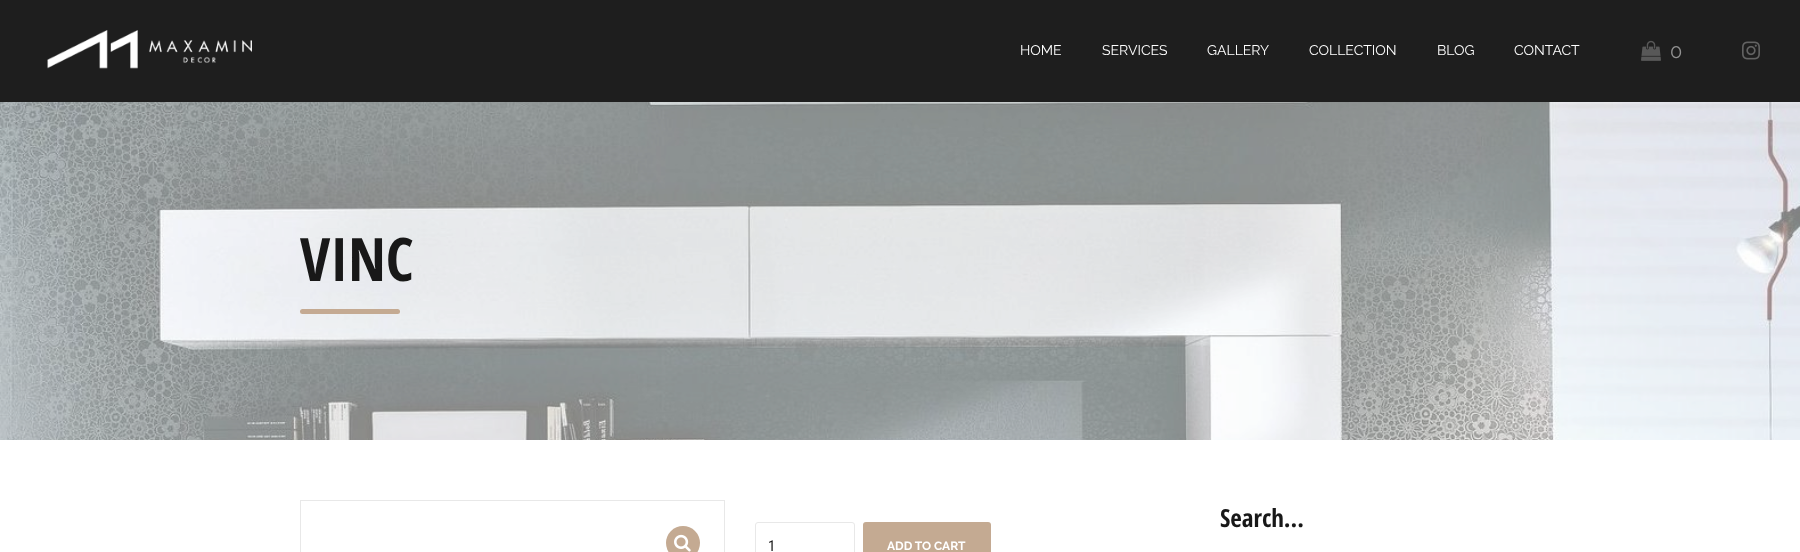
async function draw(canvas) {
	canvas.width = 1800;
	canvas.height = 552;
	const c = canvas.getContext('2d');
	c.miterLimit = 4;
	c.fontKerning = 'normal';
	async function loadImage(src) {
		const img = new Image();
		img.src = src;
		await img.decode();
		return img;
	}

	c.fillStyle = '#fff';
	c.fillRect(0, 0, 1800, 552);
	c.fillStyle = '#1e1e1e';
	c.fillRect(0, 0, 1800, 102);
	c.drawImage(await loadImage('img1.png'), 47, 30, 205, 39);
	c.font = '14px Raleway';
	c.fillStyle = '#fff';
	for (const [text, x, y] of [
		['HOME', 1020, 55],
		['SERVICES', 1102, 55],
		['GALLERY', 1207, 55],
		['COLLECTION', 1309, 55],
		['BLOG', 1437, 55],
		['CONTACT', 1514, 55],
	]) {
		c.fillText(text, x, y);
	}
	c.drawImage(await loadImage('img2.png'), 1641, 40, 20, 21);
	c.font = '20px Raleway';
	c.fillStyle = '#919191';
	c.fillText('0', 1670, 58);
	c.drawImage(await loadImage('img3.png'), 1742, 41, 18, 19);
	c.drawImage(await loadImage('img4.png'), 0, 102, 1800, 338);
	c.font = 'bold 60px Open Sans Condensed';
	c.fillStyle = '#181818';
	c.fillText('VINC', 300, 281);
	c.fillStyle = '#c4aa92';
	c.beginPath();
	c.roundRect(300, 309, 100, 5, 2.5);
	c.fill();
	c.font = 'bold 25px Open Sans Condensed';
	c.fillStyle = '#181818';
	c.fillText('Search…', 1220, 527);
	c.strokeStyle = '#e8e8e8';
	c.strokeRect(300.5, 500.5, 424, 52);
	c.fillStyle = '#c4aa92';
	c.beginPath();
	c.arc(683, 543, 17, 0, 2 * Math.PI);
	c.fill();
	c.drawImage(await loadImage('img5.png'), 674, 534, 17, 18);
	c.beginPath();
	c.roundRect(755.5, 522.5, 99, 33, 2.5);
	c.stroke();
	c.font = '15px Roboto Condensed';
	c.fillStyle = '#181818';
	c.fillText('1', 768, 551);
	c.fillStyle = '#c4aa92';
	c.beginPath();
	c.roundRect(863, 522, 128, 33, 3);
	c.fill();
	c.font = 'bold 12px Raleway';
	c.fillStyle = '#fff';
	c.fillText('ADD TO CART', 887, 550);
}

draw(document.querySelector('canvas'));
